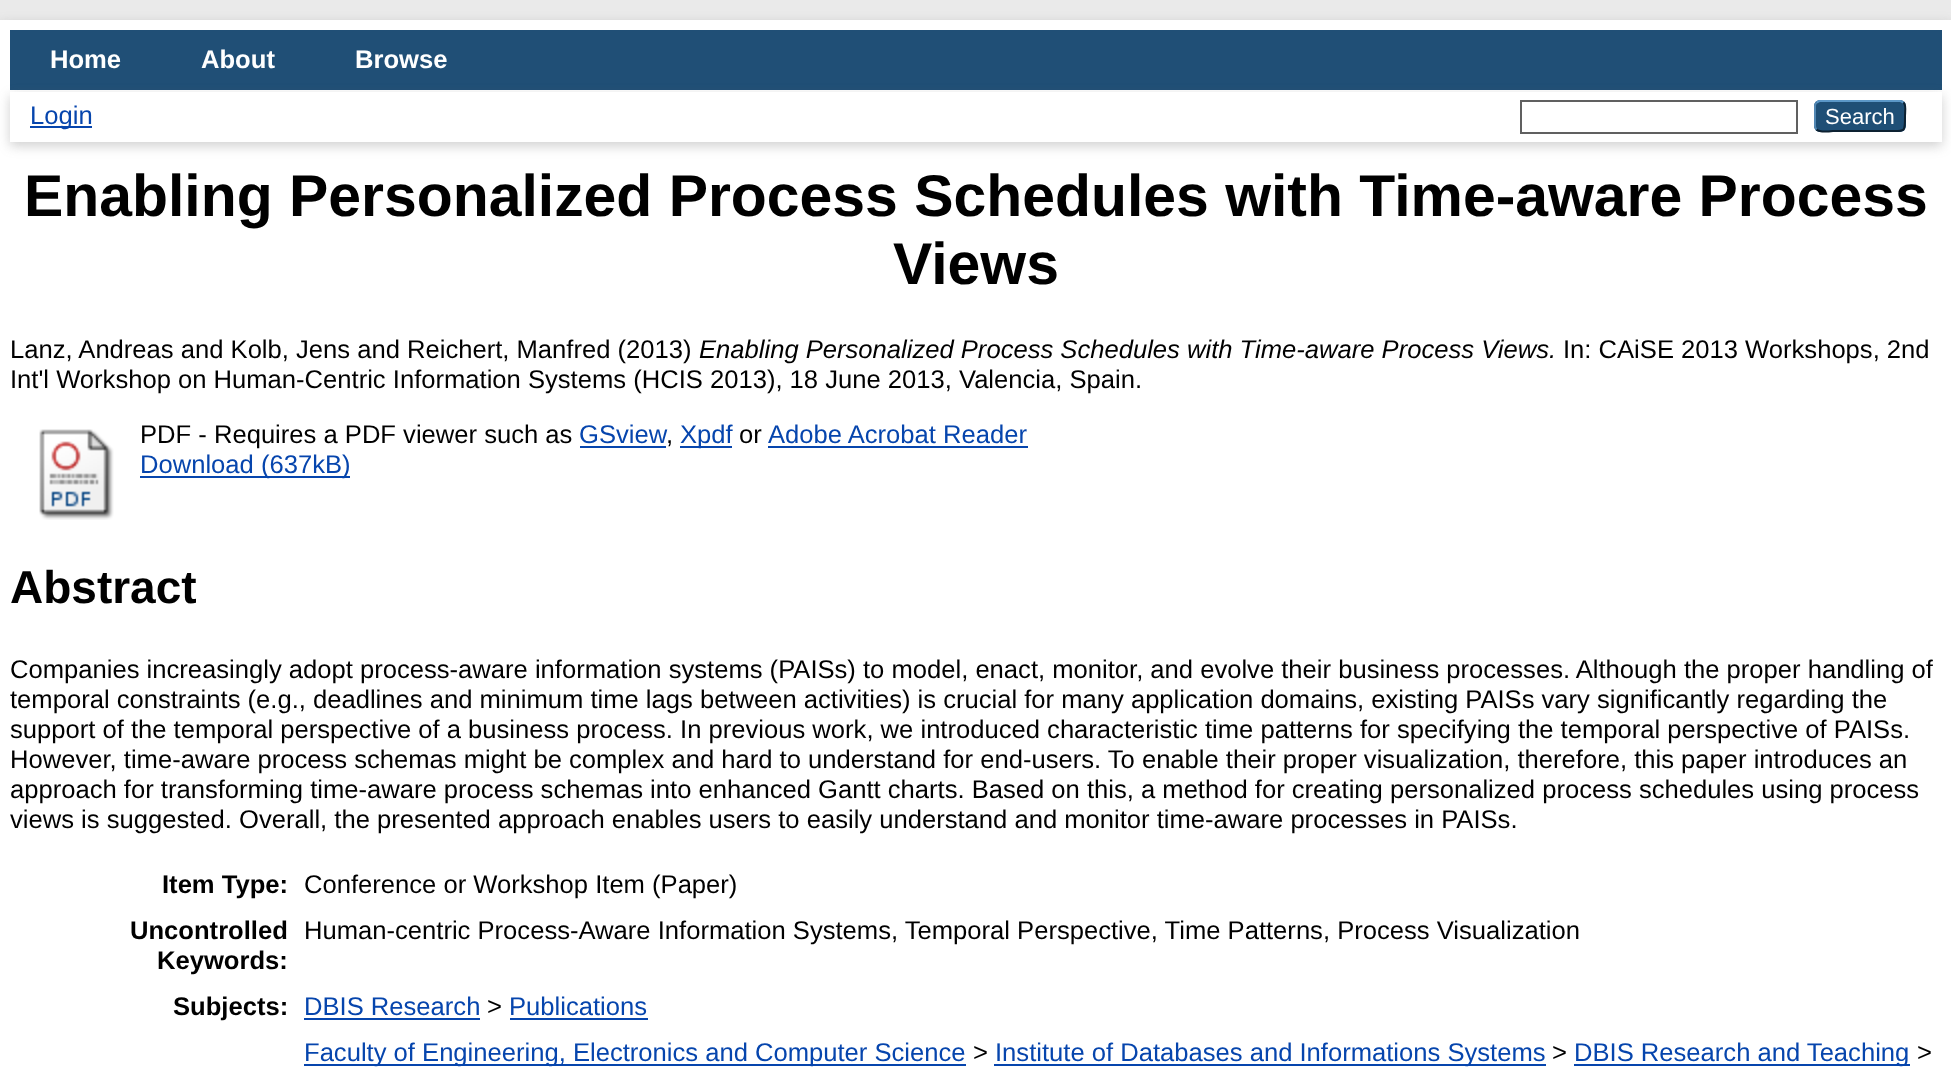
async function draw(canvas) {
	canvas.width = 1951;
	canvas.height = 1069;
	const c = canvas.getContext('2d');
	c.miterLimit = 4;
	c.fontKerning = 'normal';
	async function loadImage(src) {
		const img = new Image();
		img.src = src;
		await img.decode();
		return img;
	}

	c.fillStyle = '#eaeaea';
	c.fillRect(0, 0, 1951, 1069);
	c.fillStyle = '#6464644d';
	c.filter = 'blur(6px)';
	c.beginPath();
	c.rect(0, 24, 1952, 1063);
	c.fill();
	c.filter = 'none';
	c.fillStyle = '#fff';
	c.fillRect(0, 20, 1951, 1049);
	c.fillStyle = '#204f76';
	c.fillRect(10, 30, 1932, 60);
	c.font = 'bold 25.6px Liberation Sans';
	c.fillStyle = '#fff';
	for (const [text, x, y] of [
		['Home', 50, 68],
		['About', 201, 68],
		['Browse', 355, 68],
	]) {
		c.fillText(text, x, y);
	}
	c.fillStyle = '#6464644d';
	c.filter = 'blur(6px)';
	c.beginPath();
	c.rect(10, 96, 1932, 50);
	c.fill();
	c.filter = 'none';
	c.fillStyle = '#fff';
	c.fillRect(10, 92, 1932, 50);
	c.fillStyle = '#0645ad';
	c.fillRect(30, 126, 62, 2);
	c.font = '25.6px Liberation Sans';
	c.fillText('Login', 30, 124);
	c.strokeStyle = '#606060';
	c.lineWidth = 2;
	c.strokeRect(1521, 101, 276, 32);
	c.fillStyle = '#1f4f76';
	c.beginPath();
	c.roundRect(1814, 100, 92, 32, 6);
	c.fill();
	c.beginPath();
	c.moveTo(1816.5, 102.5);
	c.lineTo(1819.5, 101);
	c.lineTo(1900.5, 101);
	c.lineTo(1903.5, 102.5);
	c.strokeStyle = '#5b97c7';
	c.stroke();
	c.beginPath();
	c.moveTo(1903.5, 102.5);
	c.bezierCurveTo(1906.5, 105, 1905, 112.5, 1905, 116);
	c.bezierCurveTo(1905, 133.5, 1905.5, 131, 1886.5, 131);
	c.lineTo(1833.5, 131);
	c.bezierCurveTo(1833, 131, 1820, 133, 1816.5, 129.5);
	c.strokeStyle = '#0d2131';
	c.stroke();
	c.beginPath();
	c.moveTo(1816.5, 129.5);
	c.bezierCurveTo(1815.5, 128.5, 1815, 127.5, 1815, 126);
	c.lineTo(1815, 106);
	c.bezierCurveTo(1815, 104.5, 1815.5, 103.5, 1816.5, 102.5);
	c.strokeStyle = '#5287b3';
	c.stroke();
	c.font = '22px Liberation Sans';
	c.fillStyle = '#fff';
	c.fillText('Search', 1825, 124);
	c.font = 'bold 58.9px Liberation Sans';
	c.fillStyle = '#000';
	c.fillText('Enabling Personalized Process Schedules with Time-aware Process', 24, 216);
	c.fillText('Views', 893, 284);
	c.font = '25.6px Liberation Sans';
	c.fillText('Lanz, Andreas and Kolb, Jens and Reichert, Manfred (2013)', 10, 358);
	c.font = 'italic 25.6px Liberation Sans';
	c.fillText('Enabling Personalized Process Schedules with Time-aware Process Views.', 699, 358);
	c.font = '25.6px Liberation Sans';
	c.fillText('In: CAiSE 2013 Workshops, 2nd', 1563, 358);
	c.fillText('Int\'l Workshop on Human-Centric Information Systems (HCIS 2013), 18 June 2013, Valencia, Spain.', 10, 388);
	c.drawImage(await loadImage('img1.png'), 39, 429, 75, 91);
	c.fillText('PDF - Requires a PDF viewer such as', 140, 443);
	c.fillStyle = '#0645ad';
	c.fillText('GSview', 579, 443);
	c.fillRect(580, 446, 86, 2);
	c.fillStyle = '#000';
	c.fillText(',', 666, 443);
	c.fillStyle = '#0645ad';
	c.fillRect(680, 446, 52, 2);
	c.fillText('Xpdf', 680, 443);
	c.fillStyle = '#000';
	c.fillText('or', 739, 443);
	c.fillStyle = '#0645ad';
	c.fillText('Adobe Acrobat Reader', 768, 443);
	c.fillRect(768, 446, 260, 2);
	c.fillRect(140, 476, 210, 2);
	c.fillText('Download (637kB)', 140, 473);
	c.font = 'bold 46px Liberation Sans';
	c.fillStyle = '#000';
	c.fillText('Abstract', 10, 603);
	c.font = '25.6px Liberation Sans';
	for (const [text, x, y] of [
		['Companies increasingly adopt process-aware information systems (PAISs) to model, enact, monitor, and evolve their business processes. Although the proper handling of', 10, 678],
		['temporal constraints (e.g., deadlines and minimum time lags between activities) is crucial for many application domains, existing PAISs vary significantly regarding the', 10, 708],
		['support of the temporal perspective of a business process. In previous work, we introduced characteristic time patterns for specifying the temporal perspective of PAISs.', 10, 738],
		['However, time-aware process schemas might be complex and hard to understand for end-users. To enable their proper visualization, therefore, this paper introduces an', 10, 768],
		['approach for transforming time-aware process schemas into enhanced Gantt charts. Based on this, a method for creating personalized process schedules using process', 10, 798],
		['views is suggested. Overall, the presented approach enables users to easily understand and monitor time-aware processes in PAISs.', 10, 828],
	]) {
		c.fillText(text, x, y);
	}
	c.font = 'bold 25.6px Liberation Sans';
	c.fillText('Item Type:', 162, 893);
	c.font = '25.6px Liberation Sans';
	c.fillText('Conference or Workshop Item (Paper)', 304, 893);
	c.font = 'bold 25.6px Liberation Sans';
	c.fillText('Uncontrolled', 130, 939);
	c.fillText('Keywords:', 157, 969);
	c.font = '25.6px Liberation Sans';
	c.fillText('Human-centric Process-Aware Information Systems, Temporal Perspective, Time Patterns, Process Visualization', 304, 939);
	c.font = 'bold 25.6px Liberation Sans';
	c.fillText('Subjects:', 173, 1015);
	c.font = '25.6px Liberation Sans';
	c.fillStyle = '#0645ad';
	c.fillText('DBIS Research', 304, 1015);
	c.fillRect(304, 1018, 176, 2);
	c.fillStyle = '#000';
	c.fillText('>', 487, 1015);
	c.fillStyle = '#0645ad';
	c.fillText('Publications', 509, 1015);
	c.fillRect(510, 1018, 138, 2);
	c.fillRect(304, 1064, 662, 2);
	c.fillText('Faculty of Engineering, Electronics and Computer Science', 304, 1061);
	c.fillStyle = '#000';
	c.fillText('>', 973, 1061);
	c.fillStyle = '#0645ad';
	c.fillRect(994, 1064, 552, 2);
	c.fillText('Institute of Databases and Informations Systems', 995, 1061);
	c.fillStyle = '#000';
	c.fillText('>', 1552, 1061);
	c.fillStyle = '#0645ad';
	c.fillRect(1574, 1064, 336, 2);
	c.fillText('DBIS Research and Teaching', 1574, 1061);
	c.fillStyle = '#000';
	c.fillText('>', 1917, 1061);
}

draw(document.querySelector('canvas'));
